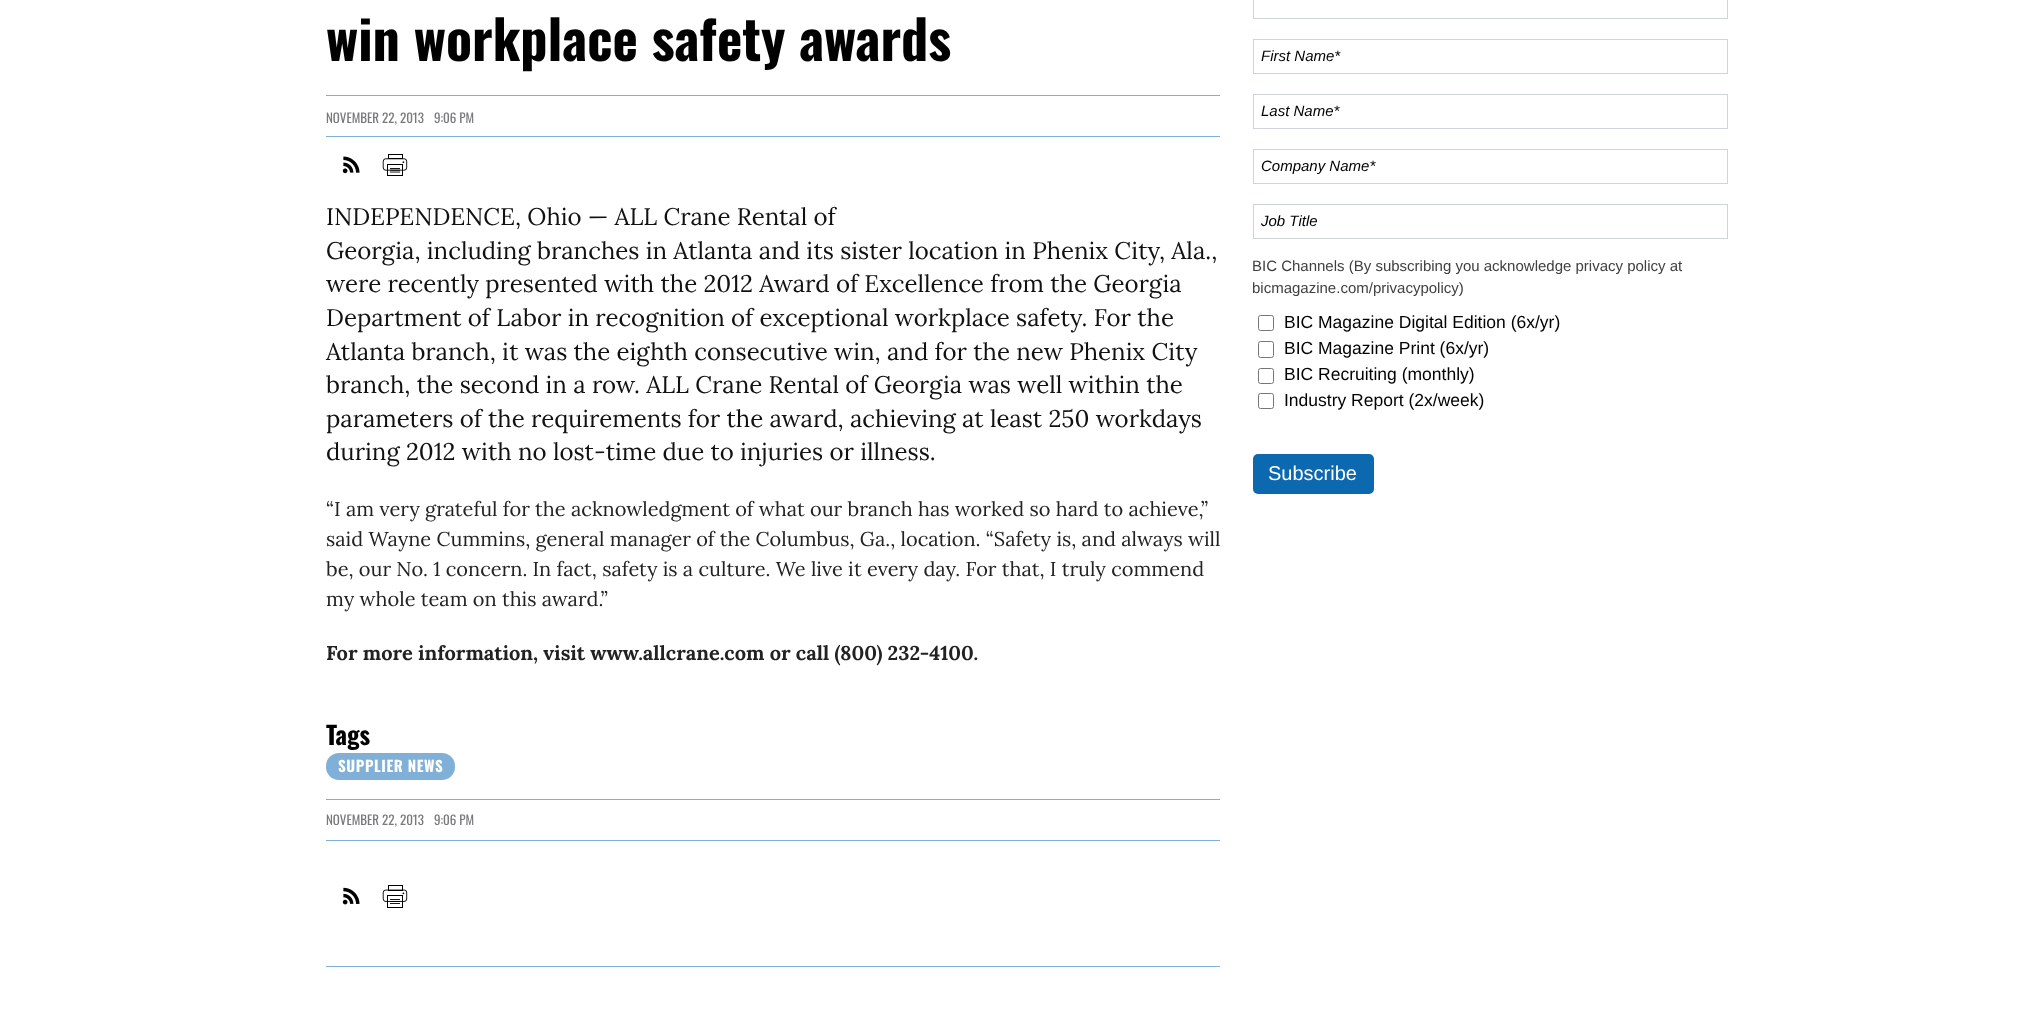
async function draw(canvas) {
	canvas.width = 2028;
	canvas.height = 1020;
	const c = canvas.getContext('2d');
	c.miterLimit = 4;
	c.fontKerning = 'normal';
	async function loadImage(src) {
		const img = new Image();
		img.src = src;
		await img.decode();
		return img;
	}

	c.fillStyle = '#fff';
	c.fillRect(0, 0, 2028, 1020);
	c.font = 'bold 54px Oswald';
	c.fillStyle = '#000';
	c.fillText('win workplace safety awards', 326, 61);
	c.fillStyle = '#80b0d7';
	c.fillRect(326, 95, 894, 1);
	c.fillRect(326, 136, 894, 1);
	c.font = '13px Oswald';
	c.fillStyle = '#77797b';
	c.fillText('NOVEMBER 22, 2013', 326, 123);
	c.fillText('9:06 PM', 434, 123);
	c.drawImage(await loadImage('img1.png'), 342, 156, 18, 18);
	c.drawImage(await loadImage('img2.png'), 382, 154, 26, 22);
	c.font = '24px Lora';
	c.fillStyle = '#111';
	for (const [text, x, y] of [
		['INDEPENDENCE, Ohio — ALL Crane Rental of', 326, 225],
		['Georgia, including branches in Atlanta and its sister location in Phenix City, Ala.,', 326, 259],
		['were recently presented with the 2012 Award of Excellence from the Georgia', 326, 292],
		['Department of Labor in recognition of exceptional workplace safety. For the', 326, 326],
		['Atlanta branch, it was the eighth consecutive win, and for the new Phenix City', 326, 360],
		['branch, the second in a row. ALL Crane Rental of Georgia was well within the', 326, 393],
		['parameters of the requirements for the award, achieving at least 250 workdays', 326, 427],
		['during 2012 with no lost-time due to injuries or illness.', 326, 460],
	]) {
		c.fillText(text, x, y);
	}
	c.font = '20px Lora';
	c.fillStyle = '#222';
	for (const [text, x, y] of [
		['“I am very grateful for the acknowledgment of what our branch has worked so hard to achieve,”', 326, 516],
		['said Wayne Cummins, general manager of the Columbus, Ga., location. “Safety is, and always will', 326, 546],
		['be, our No. 1 concern. In fact, safety is a culture. We live it every day. For that, I truly commend', 326, 576],
		['my whole team on this award.”', 326, 606],
	]) {
		c.fillText(text, x, y);
	}
	c.font = 'bold 20px Lora';
	c.fillText('For more information, visit www.allcrane.com or call (800) 232-4100.', 326, 660);
	c.font = 'bold 25px Oswald';
	c.fillStyle = '#000';
	c.fillText('Tags', 326, 745);
	c.fillStyle = '#80b0d7';
	c.beginPath();
	c.roundRect(326, 753, 129, 27, 13);
	c.fill();
	c.letterSpacing = '0.6px';
	c.font = 'bold 15px Oswald';
	c.fillStyle = '#fff';
	c.fillText('SUPPLIER NEWS', 338, 772);
	c.fillStyle = '#80b0d7';
	c.fillRect(326, 799, 894, 1);
	c.fillRect(326, 840, 894, 1);
	c.letterSpacing = '0px';
	c.font = '13px Oswald';
	c.fillStyle = '#77797b';
	c.fillText('NOVEMBER 22, 2013', 326, 825);
	c.fillText('9:06 PM', 434, 825);
	c.drawImage(await loadImage('img3.png'), 342, 887, 18, 18);
	c.drawImage(await loadImage('img4.png'), 382, 885, 26, 23);
	c.fillStyle = '#80b0d7';
	c.fillRect(326, 966, 894, 1);
	c.strokeStyle = '#ced4da';
	c.strokeRect(1253.5, -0.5, 474, 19);
	c.strokeRect(1253.5, 39.5, 474, 34);
	c.font = 'italic 15px Liberation Sans';
	c.fillStyle = '#000';
	c.fillText('First Name*', 1261, 61);
	c.strokeRect(1253.5, 94.5, 474, 34);
	c.fillText('Last Name*', 1261, 116);
	c.strokeRect(1253.5, 149.5, 474, 34);
	c.fillText('Company Name*', 1261, 171);
	c.strokeRect(1253.5, 204.5, 474, 34);
	c.fillText('Job Title', 1261, 226);
	c.font = '15px Liberation Sans';
	c.fillStyle = '#404040';
	c.fillText('BIC Channels (By subscribing you acknowledge privacy policy at', 1252, 271);
	c.fillText('bicmagazine.com/privacypolicy)', 1252, 293);
	c.beginPath();
	c.roundRect(1258.5, 315.5, 15, 15, 2);
	c.strokeStyle = '#767676';
	c.stroke();
	c.font = '17.5px Liberation Sans';
	c.fillStyle = '#000';
	c.fillText('BIC Magazine Digital Edition (6x/yr)', 1284, 328);
	c.beginPath();
	c.roundRect(1258.5, 341.5, 15, 16, 2);
	c.stroke();
	c.fillText('BIC Magazine Print (6x/yr)', 1284, 354);
	c.beginPath();
	c.roundRect(1258.5, 368.5, 15, 15, 2);
	c.stroke();
	c.fillText('BIC Recruiting (monthly)', 1284, 380);
	c.beginPath();
	c.roundRect(1258.5, 393.5, 15, 15, 2);
	c.stroke();
	c.fillText('Industry Report (2x/week)', 1284, 406);
	c.fillStyle = '#0c69b0';
	c.beginPath();
	c.roundRect(1253, 454, 121, 40, 5);
	c.fill();
	c.font = '20px Liberation Sans';
	c.fillStyle = '#fff';
	c.fillText('Subscribe', 1268, 480);
}

draw(document.querySelector('canvas'));
